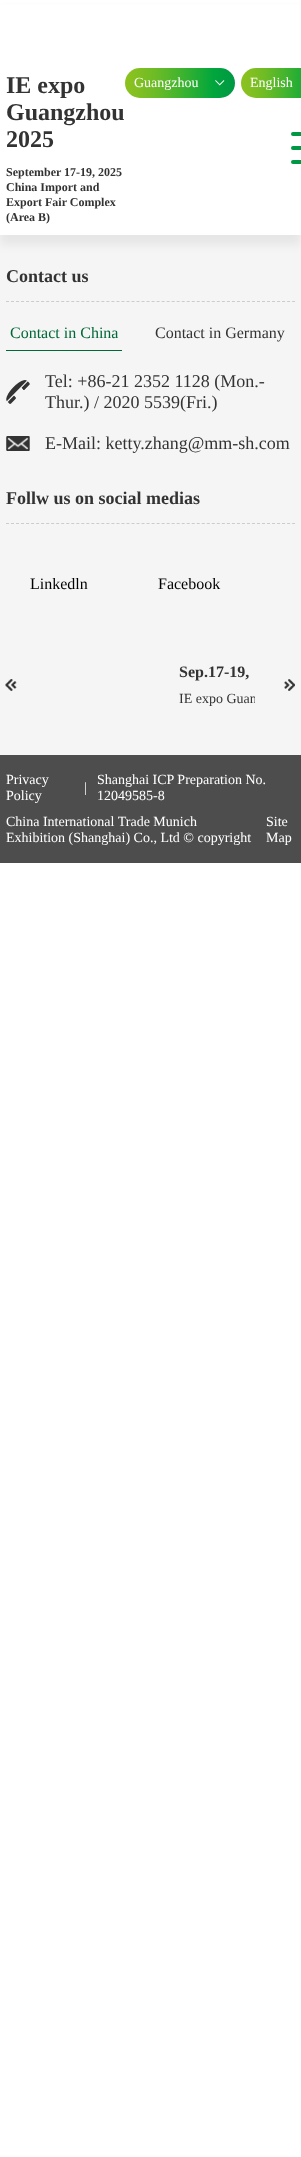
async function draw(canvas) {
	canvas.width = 301;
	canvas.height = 2157;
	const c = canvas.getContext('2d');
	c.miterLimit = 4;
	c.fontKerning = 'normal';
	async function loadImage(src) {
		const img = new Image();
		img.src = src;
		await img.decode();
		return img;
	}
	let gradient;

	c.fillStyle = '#fff';
	c.fillRect(0, 0, 301, 2157);
	c.fillStyle = '#f5f5f5';
	c.fillRect(0, 235, 301, 520);
	c.fillStyle = '#0000000f';
	c.filter = 'blur(5px)';
	c.beginPath();
	c.rect(0, 10, 301, 235);
	c.fill();
	c.filter = 'none';
	c.fillStyle = '#fff';
	c.fillRect(0, 5, 301, 230);
	c.font = 'bold 24px Liberation Serif';
	c.fillStyle = '#333';
	for (const [text, x, y] of [
		['IE expo', 6, 93],
		['Guangzhou', 6, 120],
		['2025', 6, 147],
	]) {
		c.fillText(text, x, y);
	}
	c.font = 'bold 12px Liberation Serif';
	for (const [text, x, y] of [
		['September 17-19, 2025', 6, 176],
		['China Import and', 6, 191],
		['Export Fair Complex', 6, 206],
		['(Area B)', 6, 221],
	]) {
		c.fillText(text, x, y);
	}
	gradient = c.createLinearGradient(125, 83, 235, 83);
	gradient.addColorStop(0, '#8dc21f');
	gradient.addColorStop(0.1, '#84c021');
	gradient.addColorStop(0.28, '#6cbb26');
	gradient.addColorStop(0.49, '#44b42e');
	gradient.addColorStop(0.74, '#0ea939');
	gradient.addColorStop(0.8, '#00a63c');
	gradient.addColorStop(1, '#009844');
	c.fillStyle = gradient;
	c.beginPath();
	c.roundRect(125, 68, 110, 30, 15);
	c.fill();
	c.font = '14px Liberation Serif';
	c.fillStyle = '#fff';
	c.fillText('Guangzhou', 134, 87);
	c.drawImage(await loadImage('img1.png'), 215, 80, 10, 6);
	gradient = c.createLinearGradient(241, 83, 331, 83);
	gradient.addColorStop(0, '#8dc21f');
	gradient.addColorStop(0.1, '#84c021');
	gradient.addColorStop(0.28, '#6cbb26');
	gradient.addColorStop(0.49, '#44b42e');
	gradient.addColorStop(0.74, '#0ea939');
	gradient.addColorStop(0.8, '#00a63c');
	gradient.addColorStop(1, '#009844');
	c.fillStyle = gradient;
	c.beginPath();
	c.roundRect(241, 68, 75, 30, 15);
	c.fill();
	c.fillStyle = '#fff';
	c.fillText('English', 250, 87);
	c.fillStyle = '#009844';
	c.beginPath();
	c.roundRect(291, 132, 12, 4, 2);
	c.fill();
	c.beginPath();
	c.roundRect(291, 146, 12, 4, 2);
	c.fill();
	c.beginPath();
	c.roundRect(291, 160, 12, 4, 2);
	c.fill();
	c.beginPath();
	c.moveTo(6, 301.5);
	c.lineTo(295, 301.5);
	c.strokeStyle = '#ccc';
	c.setLineDash([3, 2.02]);
	c.stroke();
	c.font = 'bold 18px Liberation Serif';
	c.fillStyle = '#333';
	c.fillText('Contact us', 6, 282);
	c.fillStyle = '#006837';
	c.fillRect(6, 350, 116, 1);
	c.font = '16px Liberation Serif';
	c.fillText('Contact in China', 10, 338);
	c.fillStyle = '#333';
	c.fillText('Contact in Germany', 155, 338);
	c.drawImage(await loadImage('img2.png'), 6, 380, 24, 24);
	c.font = '18px Liberation Serif';
	c.fillText('Tel: +86-21 2352 1128 (Mon.-', 45, 387);
	c.fillText('Thur.) / 2020 5539(Fri.)', 45, 408);
	c.drawImage(await loadImage('img3.png'), 6, 436, 24, 15);
	c.fillText('E-Mail: ketty.zhang@mm-sh.com', 45, 449);
	c.beginPath();
	c.moveTo(6, 523.5);
	c.lineTo(295, 523.5);
	c.stroke();
	c.font = 'bold 18px Liberation Serif';
	c.fillText('Follw us on social medias', 6, 504);
	c.font = '16px Liberation Serif';
	c.fillStyle = '#000';
	c.fillText('Linkedln', 30, 589);
	c.fillText('Facebook', 158, 589);
	c.drawImage(await loadImage('img4.png'), 5, 679, 12, 12);
	c.font = 'bold 16px Liberation Serif';
	c.fillStyle = '#333';
	c.fillText('Sep.17-19,', 179, 677);
	c.save();
	c.beginPath();
	c.rect(46, 663, 209, 44);
	c.clip();
	c.font = '14px Liberation Serif';
	c.fillText('IE expo Guan', 179, 703);
	c.restore();
	c.drawImage(await loadImage('img5.png'), 284, 679, 11, 12);
	c.fillStyle = '#4d4d4d';
	c.fillRect(0, 755, 301, 108);
	c.font = '14px Liberation Serif';
	c.fillStyle = '#fff';
	for (const [text, x, y] of [
		['Privacy', 6, 784],
		['Shanghai ICP Preparation No.', 97, 784],
		['Policy', 6, 800],
		['|', 84, 792],
		['12049585-8', 97, 800],
		['China International Trade Munich', 6, 826],
		['Site', 266, 826],
		['Map', 266, 842],
		['Exhibition (Shanghai) Co., Ltd © copyright', 6, 842],
	]) {
		c.fillText(text, x, y);
	}
}

draw(document.querySelector('canvas'));
